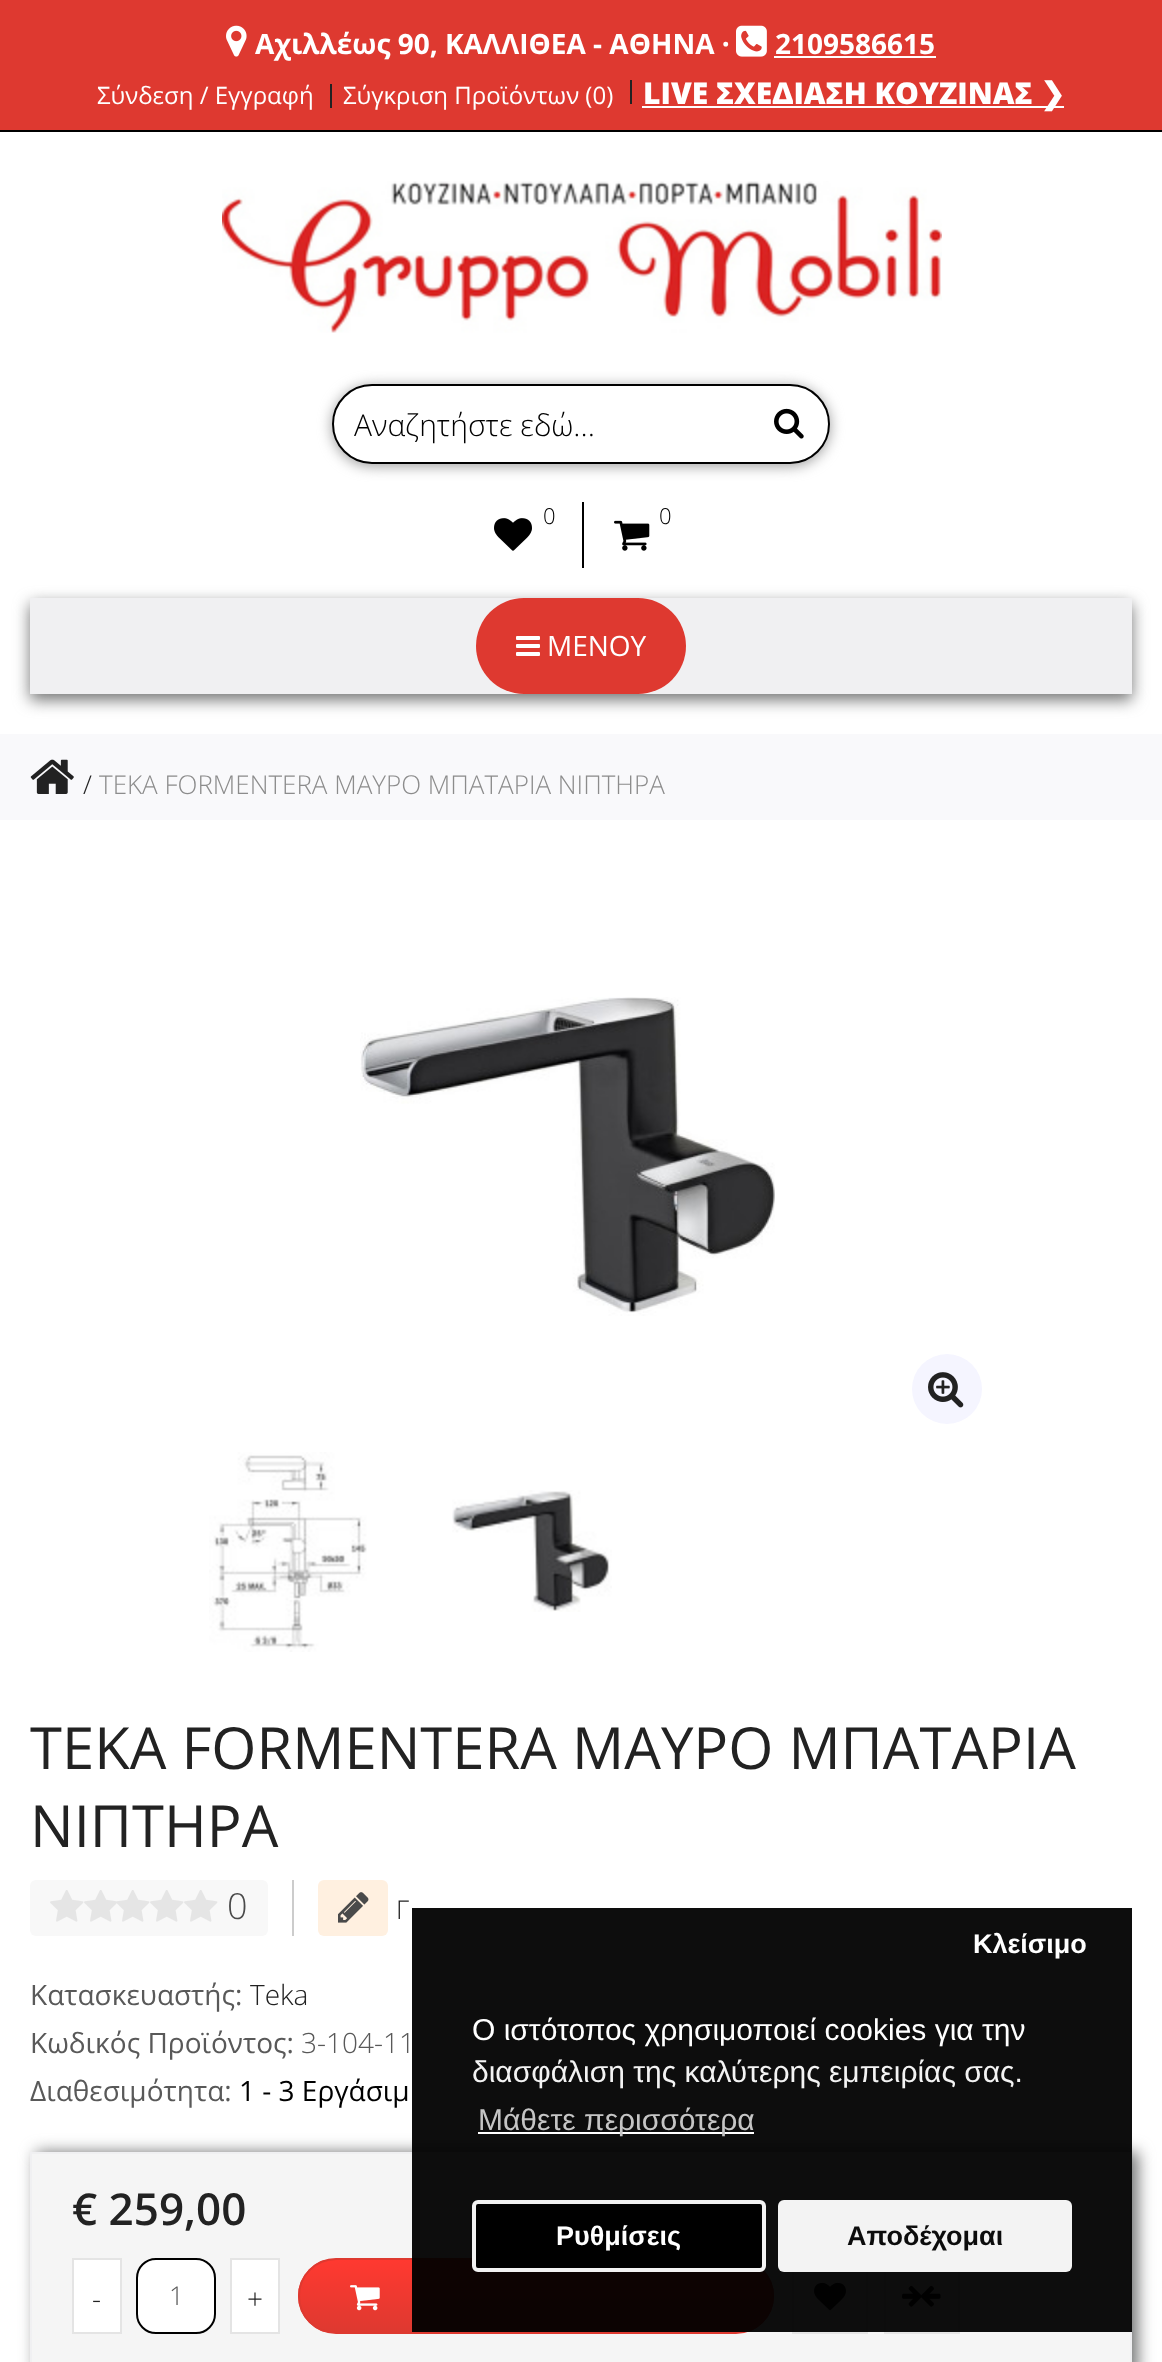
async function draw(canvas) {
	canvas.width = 1162;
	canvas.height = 2362;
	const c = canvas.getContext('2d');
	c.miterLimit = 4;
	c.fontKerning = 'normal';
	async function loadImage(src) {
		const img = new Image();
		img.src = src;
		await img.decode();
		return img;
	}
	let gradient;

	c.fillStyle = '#fff';
	c.fillRect(0, 0, 1162, 2362);
	c.fillStyle = '#de3930';
	c.fillRect(0, 0, 1162, 130);
	c.fillStyle = '#000';
	c.fillRect(0, 130, 1162, 2);
	c.drawImage(await loadImage('img1.png'), 226, 25, 21, 32);
	c.font = 'bold 28px Open Sans';
	c.fillStyle = '#fff';
	c.fillText('Αχιλλέως 90, ΚΑΛΛΙΘΕΑ - ΑΘΗΝΑ ·', 255, 54);
	c.drawImage(await loadImage('img2.png'), 736, 25, 31, 32);
	c.fillText('2109586615', 775, 54);
	c.fillRect(774, 56, 162, 2);
	c.font = '24px Open Sans';
	c.fillText('Σύνδεση / Εγγραφή', 97, 104);
	c.fillStyle = '#222';
	c.fillRect(330, 84, 2, 24);
	c.fillStyle = '#fff';
	c.fillText('Σύγκριση Προϊόντων (0)', 343, 104);
	c.fillStyle = '#222';
	c.fillRect(630, 80, 2, 24);
	c.font = '800 30px Open Sans';
	c.fillStyle = '#fff';
	c.fillText('LIVE ΣΧΕΔΙΑΣΗ ΚΟΥΖΙΝΑΣ', 643, 104);
	c.fillRect(642, 106, 422, 2);
	c.font = 'bold 30px DejaVu Sans';
	c.fillText('❯', 1040, 104);
	c.drawImage(await loadImage('img3.png'), 222, 181, 720, 152);
	c.fillStyle = '#9c9c9c';
	c.filter = 'blur(7px)';
	c.beginPath();
	c.roundRect(332, 386, 498, 80, 40);
	c.fill();
	c.filter = 'none';
	c.fillStyle = '#fff';
	c.beginPath();
	c.roundRect(333, 385, 496, 78, 39);
	c.fill();
	c.strokeStyle = '#000';
	c.lineWidth = 2;
	c.stroke();
	c.font = '300 30px Open Sans';
	c.fillStyle = '#000';
	c.fillText('Αναζητήστε εδώ...', 354, 436);
	c.drawImage(await loadImage('img4.png'), 774, 408, 30, 31);
	c.drawImage(await loadImage('img5.png'), 494, 518, 38, 33);
	c.font = '300 22px Open Sans';
	c.fillText('0', 543, 524);
	c.fillRect(582, 502, 2, 66);
	c.drawImage(await loadImage('img6.png'), 614, 520, 36, 31);
	c.fillText('0', 659, 524);
	c.fillStyle = '#737474';
	c.filter = 'blur(8px)';
	c.beginPath();
	c.rect(30, 604, 1102, 96);
	c.fill();
	c.filter = 'none';
	c.fillStyle = '#f0f0f2';
	c.fillRect(30, 598, 1102, 96);
	c.fillStyle = '#de3930';
	c.beginPath();
	c.roundRect(476, 598, 210, 96, 48);
	c.fill();
	c.drawImage(await loadImage('img7.png'), 516, 636, 24, 20);
	c.font = '28px Open Sans';
	c.fillStyle = '#fff';
	c.fillText('ΜΕΝΟΥ', 547, 656);
	c.fillStyle = '#f9f9fb';
	c.fillRect(0, 734, 1162, 86);
	c.drawImage(await loadImage('img8.png'), 30, 759, 44, 35);
	c.font = '300 26px Open Sans';
	c.fillStyle = '#222';
	c.fillText('/', 83, 794);
	c.fillStyle = '#8c8c8c';
	c.fillText('TEKA FORMENTERA ΜΑΥΡΟ ΜΠΑΤΑΡΙΑ ΝΙΠΤΗΡΑ', 99, 794);
	c.drawImage(await loadImage('img9.png'), 360, 997, 415, 319);
	c.fillStyle = '#f5f5ff';
	c.beginPath();
	c.arc(947, 1389, 35, 0, 2 * Math.PI);
	c.fill();
	c.drawImage(await loadImage('img10.png'), 928, 1372, 36, 36);
	c.drawImage(await loadImage('img11.png'), 209, 1452, 158, 200);
	c.drawImage(await loadImage('img12.png'), 452, 1490, 160, 122);
	c.font = '58px Open Sans';
	c.fillStyle = '#222';
	c.fillText('TEKA FORMENTERA ΜΑΥΡΟ ΜΠΑΤΑΡΙΑ', 30, 1769);
	c.fillText('ΝΙΠΤΗΡΑ', 30, 1847);
	c.fillStyle = '#f8f8f8';
	c.beginPath();
	c.roundRect(30, 1880, 238, 56, 6);
	c.fill();
	c.drawImage(await loadImage('img13.png'), 50, 1890, 34, 32);
	c.drawImage(await loadImage('img13.png'), 84, 1890, 34, 32);
	c.drawImage(await loadImage('img14.png'), 117, 1890, 33, 32);
	c.drawImage(await loadImage('img13.png'), 150, 1890, 34, 32);
	c.drawImage(await loadImage('img13.png'), 184, 1890, 34, 32);
	c.font = '300 36px Open Sans';
	c.fillStyle = '#4a4a4a';
	c.fillText('0', 227, 1919);
	c.fillStyle = '#ccc';
	c.fillRect(292, 1880, 2, 56);
	c.fillStyle = '#fff0e0';
	c.beginPath();
	c.roundRect(318, 1880, 70, 56, 6);
	c.fill();
	c.drawImage(await loadImage('img15.png'), 338, 1892, 31, 31);
	c.font = '300 26px Open Sans';
	c.fillStyle = '#222';
	c.fillText('Γ', 396, 1919);
	c.font = '28px Open Sans';
	c.fillStyle = '#595959';
	c.fillText('Κατασκευαστής:', 30, 2005);
	c.font = '300 28px Open Sans';
	c.fillStyle = '#222';
	c.fillText('Teka', 250, 2005);
	c.font = '28px Open Sans';
	c.fillStyle = '#595959';
	c.fillText('Κωδικός Προϊόντος:', 30, 2053);
	c.font = '300 28px Open Sans';
	c.fillText('3-104-11', 301, 2053);
	c.font = '28px Open Sans';
	c.fillText('Διαθεσιμότητα:', 30, 2101);
	c.fillStyle = '#000';
	c.fillText('1 - 3 Εργάσιμ', 239, 2101);
	c.fillStyle = '#737474';
	c.filter = 'blur(8px)';
	c.beginPath();
	c.rect(36, 2152, 1102, 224);
	c.fill();
	c.filter = 'none';
	c.fillStyle = '#f5f5f5';
	c.beginPath();
	c.rect(31, 2153, 1100, 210);
	c.fill();
	c.strokeStyle = '#f0f0f2';
	c.stroke();
	c.font = '600 44px Open Sans';
	c.fillStyle = '#222';
	c.fillText('€ 259,00', 72, 2225);
	c.fillStyle = '#fff';
	c.beginPath();
	c.rect(73, 2259, 48, 74);
	c.fill();
	c.strokeStyle = '#e4e4e4';
	c.stroke();
	c.font = '300 28px Open Sans';
	c.fillStyle = '#222';
	c.fillText('-', 92, 2309);
	c.fillStyle = '#fff';
	c.beginPath();
	c.roundRect(137, 2259, 78, 74, 19);
	c.fill();
	c.strokeStyle = '#000';
	c.stroke();
	c.font = '300 26px Open Sans';
	c.fillStyle = '#595959';
	c.fillText('1', 169, 2305);
	c.fillStyle = '#fff';
	c.beginPath();
	c.rect(231, 2259, 48, 74);
	c.fill();
	c.strokeStyle = '#e4e4e4';
	c.stroke();
	c.font = '300 28px Open Sans';
	c.fillStyle = '#222';
	c.fillText('+', 247, 2309);
	c.save();
	c.beginPath();
	c.roundRect(298, 2258, 476, 76, 38);
	c.clip();
	gradient = c.createLinearGradient(536, 2260, 536, 2332);
	gradient.addColorStop(0, '#ff3930');
	gradient.addColorStop(1, '#de3930');
	c.fillStyle = gradient;
	c.fillRect(298, 2260, 476, 72);
	c.restore();
	c.beginPath();
	c.roundRect(299, 2259, 474, 74, 37);
	c.strokeStyle = '#de3930';
	c.stroke();
	c.drawImage(await loadImage('img16.png'), 350, 2285, 30, 26);
	c.fillStyle = '#fff';
	c.fillRect(794, 2272, 72, 60);
	c.strokeStyle = '#e5e5e5';
	c.strokeRect(793, 2259, 74, 74);
	c.drawImage(await loadImage('img17.png'), 814, 2282, 32, 29);
	c.fillRect(886, 2272, 72, 60);
	c.strokeRect(885, 2259, 74, 74);
	c.drawImage(await loadImage('img18.png'), 902, 2285, 20, 22);
	c.drawImage(await loadImage('img19.png'), 921, 2285, 20, 22);
	c.fillStyle = '#000000f2';
	c.fillRect(412, 1908, 720, 424);
	c.font = 'bold 27px Liberation Sans';
	c.fillStyle = '#fff';
	c.fillText('Κλείσιμο', 973, 1953);
	c.fillStyle = '#000000f2';
	c.beginPath();
	c.roundRect(472, 2200, 294, 72, 6);
	c.fill();
	c.beginPath();
	c.roundRect(474, 2202, 290, 68, 4);
	c.strokeStyle = '#fffffff2';
	c.lineWidth = 4;
	c.stroke();
	c.fillStyle = '#fff';
	c.fillText('Ρυθμίσεις', 556, 2245);
	c.fillStyle = '#f3f3f3';
	c.beginPath();
	c.roundRect(778, 2200, 294, 72, 6);
	c.fill();
	c.fillStyle = '#0c0c0c';
	c.fillText('Αποδέχομαι', 847, 2245);
	c.font = '30px Liberation Sans';
	c.fillStyle = '#fff';
	c.fillText('Ο ιστότοπος χρησιμοποιεί cookies για την', 472, 2040);
	c.fillStyle = '#f3f3f3';
	c.fillText('διασφάλιση της καλύτερης εμπειρίας σας.', 472, 2082);
	c.fillStyle = '#fff';
	c.fillRect(478, 2132, 276, 2);
	c.fillStyle = '#c5c5c5';
	c.fillText('Μάθετε περισσότερα', 478, 2130);
}

draw(document.querySelector('canvas'));
